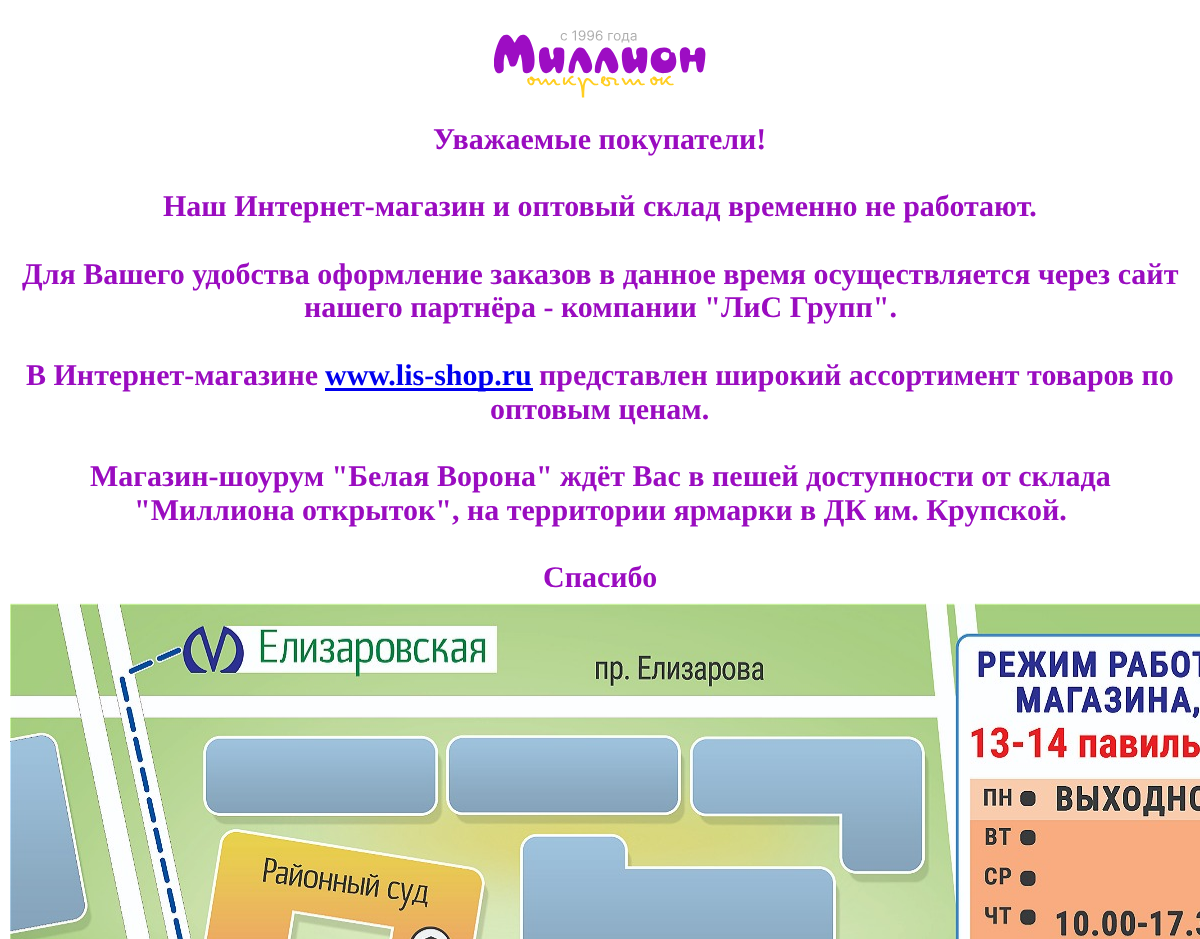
async function draw(canvas) {
	canvas.width = 1200;
	canvas.height = 939;
	const c = canvas.getContext('2d');
	c.miterLimit = 4;
	c.fontKerning = 'normal';
	async function loadImage(src) {
		const img = new Image();
		img.src = src;
		await img.decode();
		return img;
	}

	c.fillStyle = '#fff';
	c.fillRect(0, 0, 1200, 939);
	c.drawImage(await loadImage('img1.png'), 494, 30, 212, 68);
	c.font = 'bold 30px Liberation Serif';
	c.fillStyle = '#9a0cc0';
	for (const [text, x, y] of [
		['Уважаемые покупатели!', 433, 149],
		['Наш Интернет-магазин и оптовый склад временно не работают.', 163, 216],
		['Для Вашего удобства оформление заказов в данное время осуществляется через сайт', 22, 284],
		['нашего партнёра - компании "ЛиС Групп".', 304, 317],
		['В Интернет-магазине', 26, 385],
	]) {
		c.fillText(text, x, y);
	}
	c.fillStyle = '#00e';
	c.fillRect(325, 388, 208, 3);
	c.fillText('www.lis-shop.ru', 325, 385);
	c.fillStyle = '#9a0cc0';
	for (const [text, x, y] of [
		['представлен широкий ассортимент товаров по', 539, 385],
		['оптовым ценам.', 490, 419],
		['Магазин-шоурум "Белая Ворона" ждёт Вас в пешей доступности от склада', 90, 486],
		['"Миллиона открыток", на территории ярмарки в ДК им. Крупской.', 134, 520],
		['Спасибо', 543, 587],
	]) {
		c.fillText(text, x, y);
	}
	c.drawImage(await loadImage('img2.png'), 10, 603, 1190, 336);
}

draw(document.querySelector('canvas'));
